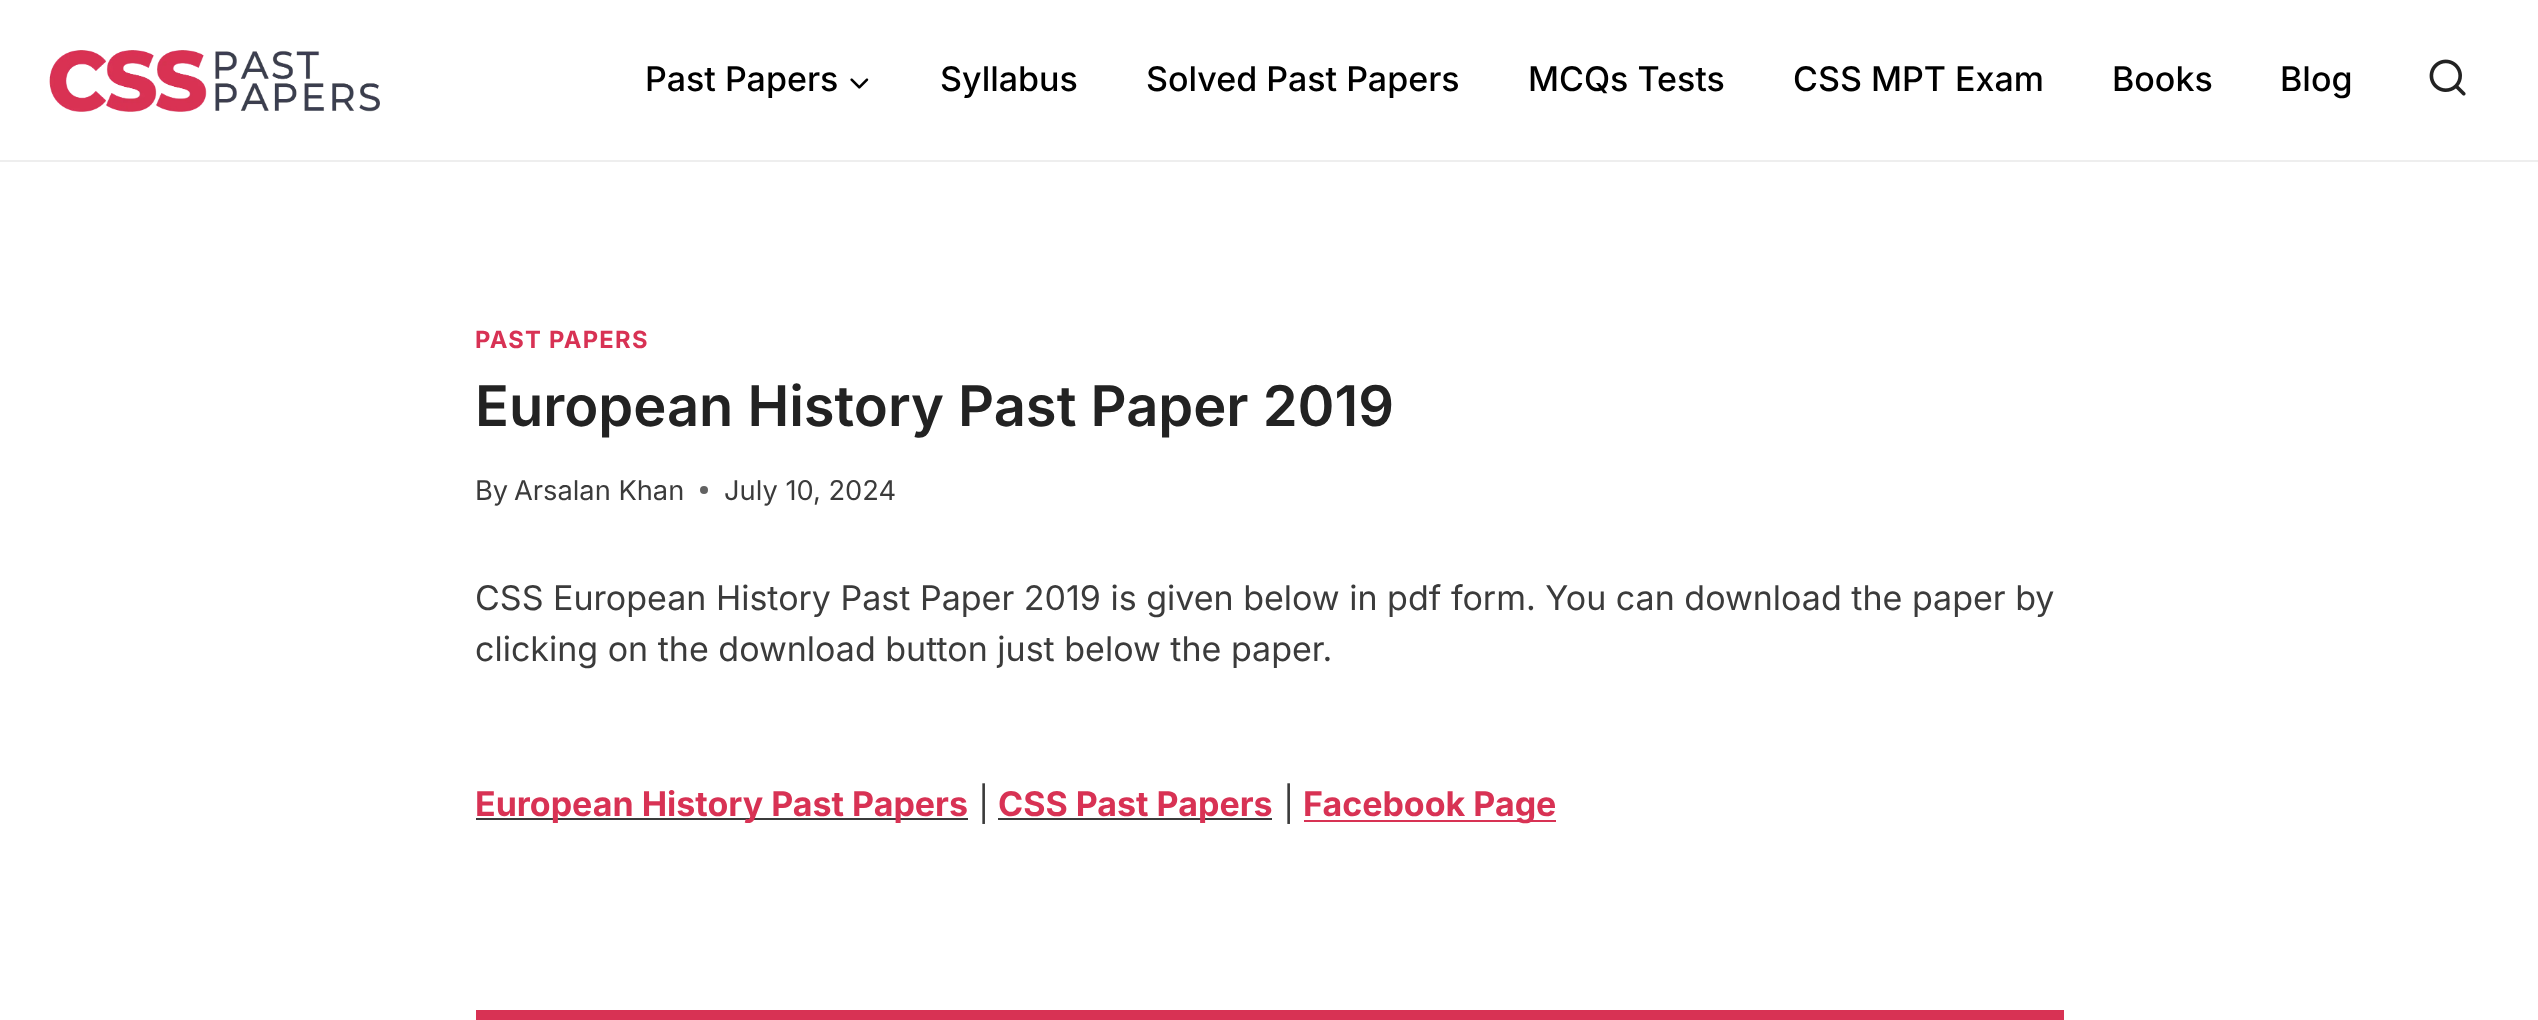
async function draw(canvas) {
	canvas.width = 2538;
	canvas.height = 1020;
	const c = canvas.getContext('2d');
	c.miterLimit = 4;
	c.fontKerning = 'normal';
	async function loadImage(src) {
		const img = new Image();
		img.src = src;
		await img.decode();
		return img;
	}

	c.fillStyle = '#fff';
	c.fillRect(0, 0, 2538, 1020);
	c.fillStyle = '#eee';
	c.fillRect(0, 160, 2538, 2);
	c.drawImage(await loadImage('img1.png'), 49, 50, 331, 62);
	c.font = '500 34px Inter';
	c.fillStyle = '#000';
	c.fillText('Past Papers', 645, 91);
	c.drawImage(await loadImage('img2.png'), 850, 78, 19, 11);
	for (const [text, x, y] of [
		['Syllabus', 940, 91],
		['Solved Past Papers', 1146, 91],
		['MCQs Tests', 1528, 91],
		['CSS MPT Exam', 1793, 91],
		['Books', 2112, 91],
		['Blog', 2280, 91],
	]) {
		c.fillText(text, x, y);
	}
	c.drawImage(await loadImage('img3.png'), 2429, 59, 37, 37);
	c.letterSpacing = '1.25px';
	c.font = 'bold 23.75px Inter';
	c.fillStyle = '#d83254';
	c.fillText('PAST PAPERS', 475, 348);
	c.letterSpacing = '0px';
	c.font = '600 56px Inter';
	c.fillStyle = '#222';
	c.fillText('European History Past Paper 2019', 475, 426);
	c.font = '27.25px Inter';
	c.fillStyle = '#3b3b3b';
	c.fillText('By', 475, 500);
	c.fillText('Arsalan Khan', 514, 500);
	c.fillStyle = '#626262';
	c.beginPath();
	c.arc(704, 490, 4, 0, 2 * Math.PI);
	c.fill();
	c.fillStyle = '#3b3b3b';
	c.fillText('July 10, 2024', 724, 500);
	c.font = '34px Inter';
	c.fillText('CSS European History Past Paper 2019 is given below in pdf form. You can download the paper by', 475, 610);
	c.fillText('clicking on the download button just below the paper.', 475, 661);
	c.fillRect(476, 818, 492, 2);
	c.font = 'bold 34px Inter';
	c.fillStyle = '#d83254';
	c.fillText('European History Past Papers', 475, 816);
	c.font = '34px Inter';
	c.fillStyle = '#3b3b3b';
	c.fillText('|', 978, 816);
	c.fillRect(998, 818, 274, 2);
	c.font = 'bold 34px Inter';
	c.fillStyle = '#d83254';
	c.fillText('CSS Past Papers', 998, 816);
	c.font = '34px Inter';
	c.fillStyle = '#3b3b3b';
	c.fillText('|', 1283, 816);
	c.fillStyle = '#d83254';
	c.fillRect(1304, 820, 252, 2);
	c.font = 'bold 34px Inter';
	c.fillText('Facebook Page', 1303, 816);
	c.fillRect(476, 1010, 1588, 10);
}

draw(document.querySelector('canvas'));
